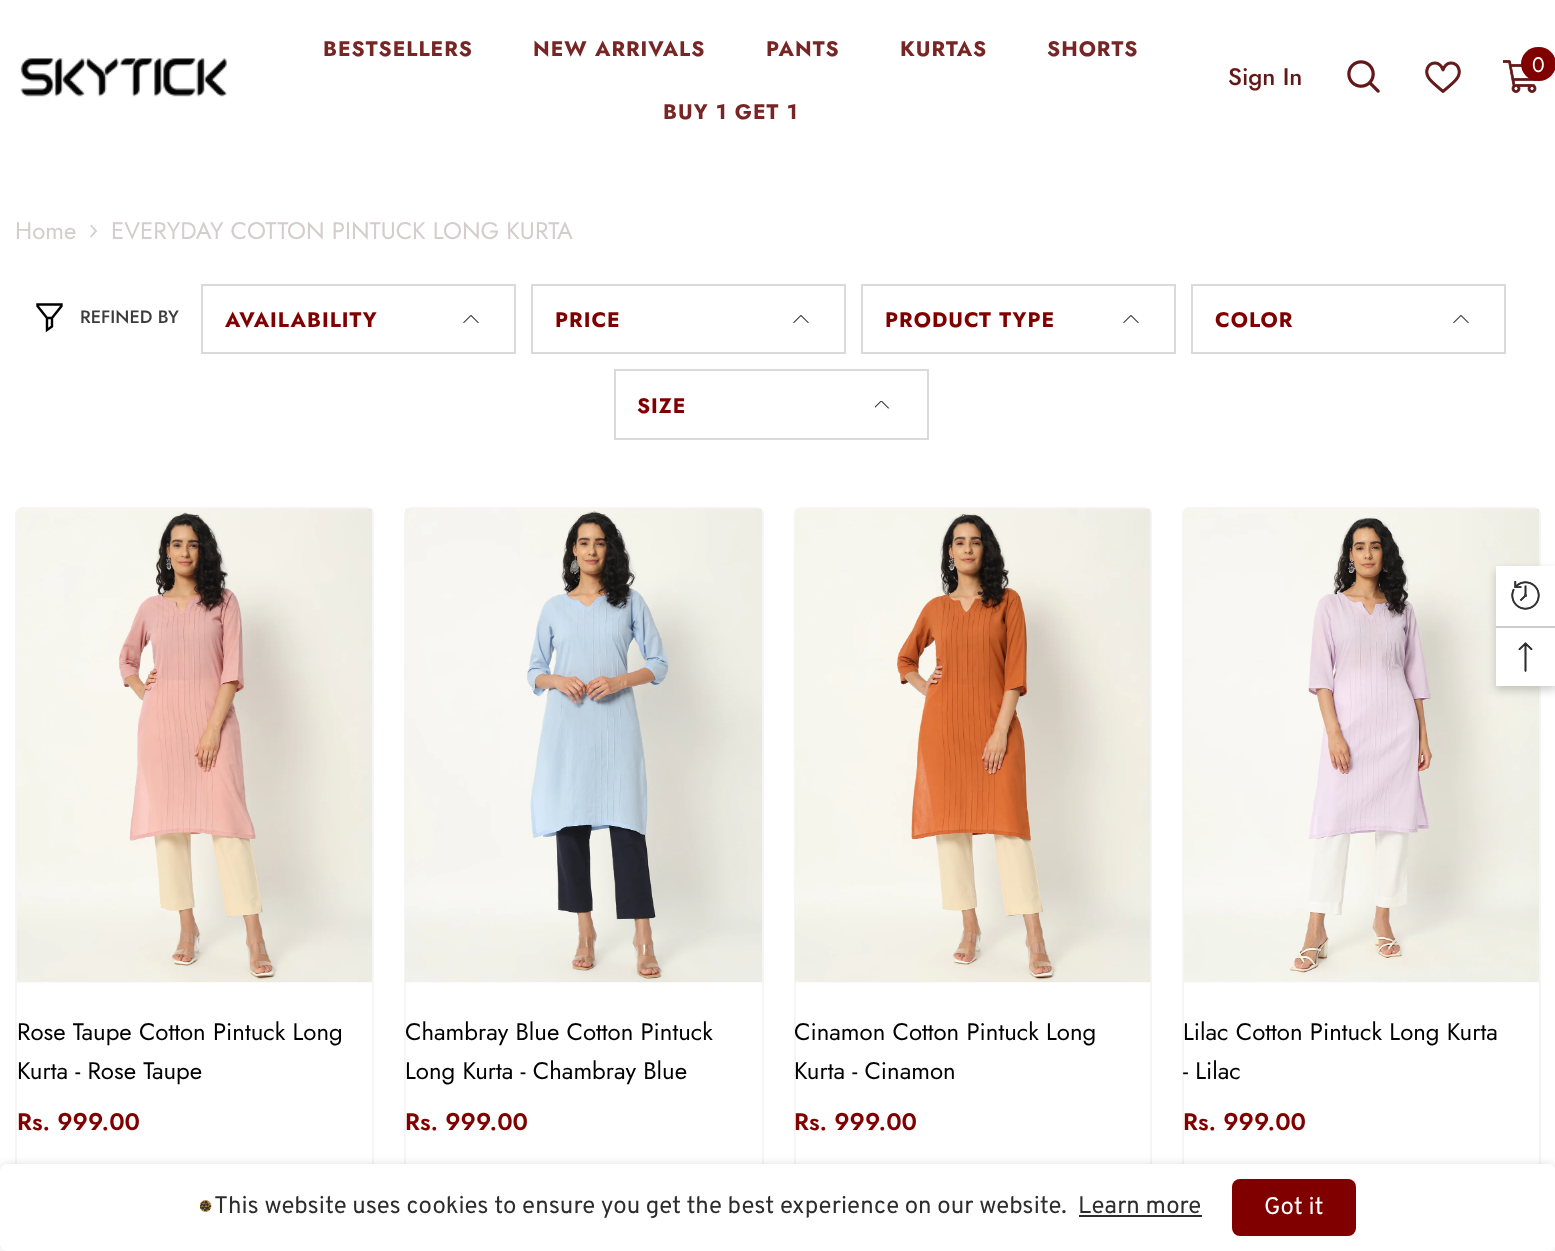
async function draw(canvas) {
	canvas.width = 1555;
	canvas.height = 1251;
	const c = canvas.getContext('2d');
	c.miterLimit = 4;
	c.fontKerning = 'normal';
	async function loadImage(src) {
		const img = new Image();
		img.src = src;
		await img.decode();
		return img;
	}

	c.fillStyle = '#fff';
	c.fillRect(0, 0, 1555, 1251);
	c.drawImage(await loadImage('img1.png'), 20, 58, 207, 39);
	c.letterSpacing = '1px';
	c.font = 'bold 21px Jost';
	c.fillStyle = '#782525';
	for (const [text, x, y] of [
		['BESTSELLERS', 323, 56],
		['NEW ARRIVALS', 533, 56],
		['PANTS', 766, 56],
		['KURTAS', 900, 56],
		['SHORTS', 1047, 56],
		['BUY 1 GET 1', 663, 119],
	]) {
		c.fillText(text, x, y);
	}
	c.letterSpacing = '0px';
	c.font = '500 24px Jost';
	c.fillStyle = '#631818';
	c.fillText('Sign In', 1228, 85);
	c.drawImage(await loadImage('img2.png'), 1347, 60, 33, 33);
	c.drawImage(await loadImage('img3.png'), 1425, 61, 36, 32);
	c.drawImage(await loadImage('img4.png'), 1503, 60, 34, 33);
	c.fillStyle = '#800000';
	c.beginPath();
	c.roundRect(1521, 47, 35, 34, 17);
	c.fill();
	c.font = '21px Jost';
	c.fillStyle = '#fff';
	c.fillText('0', 1532, 72);
	c.font = '24px Jost';
	c.fillStyle = '#d4cdcd';
	c.fillText('Home', 15, 239);
	c.drawImage(await loadImage('img5.png'), 90, 224, 7, 14);
	c.fillText('EVERYDAY COTTON PINTUCK LONG KURTA', 111, 239);
	c.beginPath();
	c.moveTo(61.5, 304.5);
	c.lineTo(37.5, 304.5);
	c.lineTo(37.5, 306);
	c.lineTo(47, 318);
	c.lineTo(52, 318);
	c.lineTo(61.5, 306);
	c.closePath();
	c.moveTo(52, 326.5);
	c.lineTo(47, 330);
	c.lineTo(47, 318);
	c.lineTo(52, 318);
	c.closePath();
	c.strokeStyle = '#000';
	c.lineWidth = 2.4;
	c.stroke();
	c.font = '500 18px Jost';
	c.fillStyle = '#3c3c3c';
	c.fillText('REFINED BY', 80, 323);
	c.strokeStyle = '#dadada';
	c.lineWidth = 2;
	c.strokeRect(202, 285, 313, 68);
	c.letterSpacing = '1px';
	c.font = 'bold 21px Jost';
	c.fillStyle = '#800000';
	c.fillText('AVAILABILITY', 225, 327);
	c.drawImage(await loadImage('img6.png'), 462, 315, 17, 8);
	c.strokeRect(532, 285, 313, 68);
	c.fillText('PRICE', 555, 327);
	c.drawImage(await loadImage('img6.png'), 792, 315, 17, 8);
	c.strokeRect(862, 285, 313, 68);
	c.fillText('PRODUCT TYPE', 885, 327);
	c.drawImage(await loadImage('img6.png'), 1122, 315, 17, 8);
	c.strokeRect(1192, 285, 313, 68);
	c.fillText('COLOR', 1215, 327);
	c.drawImage(await loadImage('img6.png'), 1452, 315, 17, 8);
	c.strokeRect(615, 370, 313, 69);
	c.fillText('SIZE', 637, 413);
	c.drawImage(await loadImage('img7.png'), 875, 401, 15, 8);
	c.beginPath();
	c.roundRect(16, 508, 357, 684, 7);
	c.strokeStyle = '#f5f5f5';
	c.stroke();
	c.drawImage(await loadImage('img8.png'), 17, 508, 355, 475);
	c.letterSpacing = '0px';
	c.font = '24px Jost';
	c.fillStyle = '#000';
	c.fillText('Rose Taupe Cotton Pintuck Long', 17, 1040);
	c.fillText('Kurta - Rose Taupe', 17, 1079);
	c.font = '600 24px Jost';
	c.fillStyle = '#800000';
	c.fillText('Rs. 999.00', 17, 1130);
	c.beginPath();
	c.roundRect(405, 508, 358, 684, 7);
	c.stroke();
	c.drawImage(await loadImage('img9.png'), 405, 508, 357, 475);
	c.font = '24px Jost';
	c.fillStyle = '#000';
	c.fillText('Chambray Blue Cotton Pintuck', 405, 1040);
	c.fillText('Long Kurta - Chambray Blue', 405, 1079);
	c.font = '600 24px Jost';
	c.fillStyle = '#800000';
	c.fillText('Rs. 999.00', 405, 1130);
	c.beginPath();
	c.roundRect(795, 508, 356, 684, 7);
	c.stroke();
	c.drawImage(await loadImage('img10.png'), 795, 508, 356, 475);
	c.font = '24px Jost';
	c.fillStyle = '#000';
	c.fillText('Cinamon Cotton Pintuck Long', 794, 1040);
	c.fillText('Kurta - Cinamon', 794, 1079);
	c.font = '600 24px Jost';
	c.fillStyle = '#800000';
	c.fillText('Rs. 999.00', 794, 1130);
	c.beginPath();
	c.roundRect(1183, 508, 357, 684, 7);
	c.stroke();
	c.drawImage(await loadImage('img11.png'), 1184, 508, 355, 475);
	c.font = '24px Jost';
	c.fillStyle = '#000';
	c.fillText('Lilac Cotton Pintuck Long Kurta', 1183, 1040);
	c.fillText('- Lilac', 1183, 1079);
	c.font = '600 24px Jost';
	c.fillStyle = '#800000';
	c.fillText('Rs. 999.00', 1183, 1130);
	c.fillStyle = '#00000033';
	c.filter = 'blur(5px)';
	c.beginPath();
	c.rect(1496, 570, 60, 120);
	c.fill();
	c.filter = 'none';
	c.fillStyle = '#fff';
	c.fillRect(1496, 566, 59, 120);
	c.drawImage(await loadImage('img12.png'), 1511, 581, 29, 29);
	c.fillStyle = '#ccc';
	c.fillRect(1496, 626, 59, 2);
	c.drawImage(await loadImage('img13.png'), 1518, 642, 15, 30);
	c.fillStyle = '#fff';
	c.fillRect(15, 1164, 1526, 29);
	c.save();
	c.beginPath();
	c.moveTo(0, 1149);
	c.lineTo(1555, 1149);
	c.lineTo(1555, 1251);
	c.lineTo(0, 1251);
	c.closePath();
	c.moveTo(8, 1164);
	c.lineTo(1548, 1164);
	c.bezierCurveTo(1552.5, 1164, 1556, 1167.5, 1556, 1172);
	c.lineTo(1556, 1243);
	c.bezierCurveTo(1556, 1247.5, 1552.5, 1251, 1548, 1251);
	c.lineTo(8, 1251);
	c.bezierCurveTo(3.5, 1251, 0, 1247.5, 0, 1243);
	c.lineTo(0, 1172);
	c.bezierCurveTo(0, 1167.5, 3.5, 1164, 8, 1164);
	c.closePath();
	c.clip('evenodd');
	c.fillStyle = '#0000001f';
	c.filter = 'blur(4.5px)';
	c.beginPath();
	c.roundRect(0, 1164, 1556, 87, 8);
	c.fill();
	c.filter = 'none';
	c.restore();
	c.drawImage(await loadImage('img14.png'), 200, 1200, 12, 12);
	c.font = '24px Overpass';
	c.fillStyle = '#2d2d2d';
	c.fillText('This website uses cookies to ensure you get the best experience on our website.', 214, 1213);
	c.fillText('Learn more', 1078, 1213);
	c.fillRect(1079, 1215, 123, 2);
	c.fillStyle = '#800000';
	c.beginPath();
	c.roundRect(1232, 1179, 124, 57, 8);
	c.fill();
	c.fillStyle = '#fff';
	c.fillText('Got it', 1264, 1214);
}

draw(document.querySelector('canvas'));
